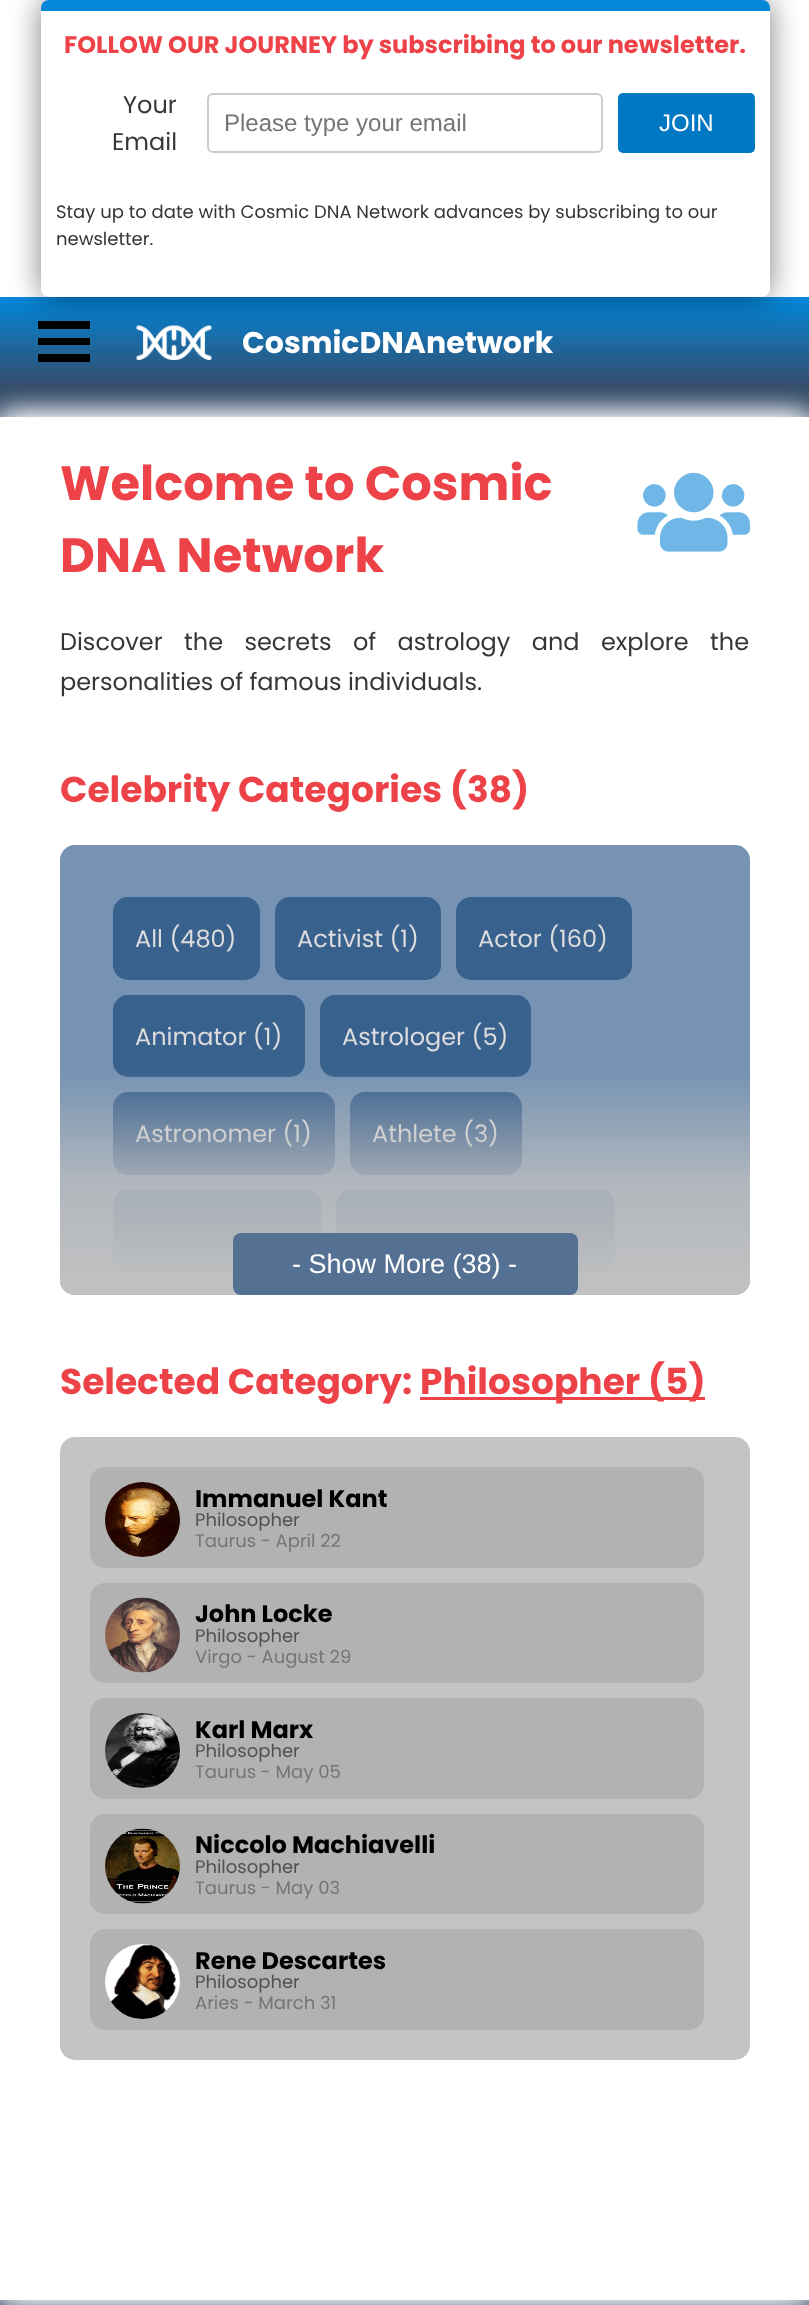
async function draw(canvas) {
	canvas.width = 809;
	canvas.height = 2305;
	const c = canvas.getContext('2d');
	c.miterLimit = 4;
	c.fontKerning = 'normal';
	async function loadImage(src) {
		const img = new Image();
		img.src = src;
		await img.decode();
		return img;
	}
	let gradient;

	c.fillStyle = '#354c69';
	c.fillRect(0, 0, 809, 2305);
	c.fillStyle = '#fff';
	c.fillRect(0, 0, 809, 297);
	gradient = c.createLinearGradient(405, 387, 405, 297);
	gradient.addColorStop(0, '#344d6b');
	gradient.addColorStop(1, '#0287db');
	c.fillStyle = gradient;
	c.fillRect(0, 297, 809, 90);
	c.fillStyle = '#000';
	c.fillRect(38, 321, 52, 8);
	c.fillRect(38, 338, 52, 7);
	c.drawImage(await loadImage('img1.png'), 136, 325, 76, 35);
	c.fillStyle = '#00000080';
	c.filter = 'blur(15px)';
	c.beginPath();
	c.roundRect(41, 0, 729, 297, 8);
	c.fill();
	c.filter = 'none';
	c.fillStyle = '#0287db';
	c.beginPath();
	c.roundRect(41, 0, 729, 11, [8, 8, 0, 0]);
	c.fill();
	c.save();
	c.beginPath();
	c.roundRect(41, 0, 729, 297, 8);
	c.clip();
	c.fillStyle = '#0000001a';
	c.filter = 'blur(3px)';
	c.beginPath();
	c.rect(41, 14, 729, 286);
	c.fill();
	c.filter = 'none';
	c.restore();
	c.fillStyle = '#fff';
	c.beginPath();
	c.roundRect(41, 11, 729, 286, [0, 0, 8, 8]);
	c.fill();
	c.font = 'bold 24px Poppins';
	c.fillStyle = '#ed4247';
	c.fillText('FOLLOW OUR JOURNEY by subscribing to our newsletter.', 64, 53);
	c.font = '24px Poppins';
	c.fillStyle = '#363636';
	c.fillText('Your', 123, 113);
	c.fillText('Email', 112, 150);
	c.beginPath();
	c.roundRect(208, 94, 394, 58, 5);
	c.strokeStyle = '#ccc';
	c.lineWidth = 2;
	c.stroke();
	c.font = '24px Liberation Sans';
	c.fillStyle = '#757575';
	c.fillText('Please type your email', 224, 131);
	c.fillStyle = '#0078c4';
	c.beginPath();
	c.roundRect(618, 93, 137, 60, 5);
	c.fill();
	c.fillStyle = '#fff';
	c.fillText('JOIN', 659, 131);
	c.font = '18px Poppins';
	c.fillStyle = '#363636';
	c.fillText('Stay up to date with Cosmic DNA Network advances by subscribing to our', 56, 218);
	c.fillText('newsletter.', 56, 245);
	c.fillStyle = '#000';
	c.fillRect(38, 354, 52, 8);
	c.font = 'bold 30px Poppins';
	c.fillStyle = '#fff';
	c.fillText('CosmicDNAnetwork', 242, 353);
	c.filter = 'blur(15px)';
	c.beginPath();
	c.rect(0, 417, 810, 1883);
	c.fill();
	c.filter = 'none';
	c.filter = 'blur(15px)';
	c.beginPath();
	c.rect(0, 417, 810, 1883);
	c.fill();
	c.filter = 'none';
	c.fillRect(0, 417, 809, 1883);
	c.font = 'bold 48px Poppins';
	c.fillStyle = '#ed4247';
	c.fillText('Welcome to Cosmic', 60, 500);
	c.fillText('DNA Network', 60, 572);
	c.drawImage(await loadImage('img2.png'), 637, 472, 113, 80);
	c.wordSpacing = '15px';
	c.font = '24px Poppins';
	c.fillStyle = '#363636';
	c.fillText('Discover the secrets of astrology and explore the', 60, 650);
	c.wordSpacing = '0px';
	c.fillText('personalities of famous individuals.', 60, 690);
	c.font = 'bold 36px Poppins';
	c.fillStyle = '#ed4247';
	c.fillText('Celebrity Categories (38)', 60, 802);
	c.fillStyle = '#f9f9f9';
	c.beginPath();
	c.roundRect(60, 845, 690, 450, 15);
	c.fill();
	c.fillStyle = '#6182a8db';
	c.beginPath();
	c.roundRect(60, 845, 690, 450, 15);
	c.fill();
	c.fillStyle = '#39618e';
	c.beginPath();
	c.roundRect(113, 897, 147, 83, 15);
	c.fill();
	c.font = '24px Poppins';
	c.fillStyle = '#ddd';
	c.fillText('All (480)', 135, 947);
	c.fillStyle = '#39618e';
	c.beginPath();
	c.roundRect(275, 897, 166, 83, 15);
	c.fill();
	c.fillStyle = '#ddd';
	c.fillText('Activist (1)', 297, 947);
	c.fillStyle = '#39618e';
	c.beginPath();
	c.roundRect(456, 897, 176, 83, 15);
	c.fill();
	c.fillStyle = '#ddd';
	c.fillText('Actor (160)', 478, 947);
	c.fillStyle = '#39618e';
	c.beginPath();
	c.roundRect(113, 995, 192, 82, 15);
	c.fill();
	c.fillStyle = '#ddd';
	c.fillText('Animator (1)', 135, 1045);
	c.fillStyle = '#39618e';
	c.beginPath();
	c.roundRect(320, 995, 211, 82, 15);
	c.fill();
	c.fillStyle = '#ddd';
	c.fillText('Astrologer (5)', 342, 1045);
	c.fillStyle = '#39618e';
	c.beginPath();
	c.roundRect(113, 1092, 222, 83, 15);
	c.fill();
	c.fillStyle = '#ddd';
	c.fillText('Astronomer (1)', 135, 1142);
	c.fillStyle = '#39618e';
	c.beginPath();
	c.roundRect(350, 1092, 172, 83, 15);
	c.fill();
	c.fillStyle = '#ddd';
	c.fillText('Athlete (3)', 372, 1142);
	c.fillStyle = '#39618e';
	c.beginPath();
	c.roundRect(113, 1190, 208, 82, 15);
	c.fill();
	c.beginPath();
	c.roundRect(336, 1190, 279, 82, 15);
	c.fill();
	c.beginPath();
	c.roundRect(113, 1287, 138, 8, [15, 15, 0, 0]);
	c.fill();
	c.beginPath();
	c.roundRect(266, 1287, 144, 8, [15, 15, 0, 0]);
	c.fill();
	c.beginPath();
	c.roundRect(425, 1287, 216, 8, [15, 15, 0, 0]);
	c.fill();
	gradient = c.createLinearGradient(405, 1070, 405, 1295);
	gradient.addColorStop(0, '#c0c0c000');
	gradient.addColorStop(0.5, '#c0c0c0cc');
	gradient.addColorStop(1, '#c2c2c2');
	c.fillStyle = gradient;
	c.beginPath();
	c.roundRect(60, 1070, 690, 225, [0, 0, 15, 15]);
	c.fill();
	c.fillStyle = '#547093';
	c.beginPath();
	c.roundRect(233, 1233, 345, 62, 8);
	c.fill();
	c.font = '27px Liberation Sans';
	c.fillStyle = '#fff';
	c.fillText('- Show More (38) -', 292, 1273);
	c.font = 'bold 36px Poppins';
	c.fillStyle = '#ed4247';
	c.fillText('Selected Category:', 60, 1394);
	c.fillRect(420, 1397, 285, 3);
	c.fillText('Philosopher (5)', 420, 1394);
	c.fillStyle = '#c4c4c4';
	c.beginPath();
	c.roundRect(60, 1437, 690, 623, 15);
	c.fill();
	c.fillStyle = '#b2b2b2';
	c.beginPath();
	c.roundRect(90, 1467, 614, 101, 15);
	c.fill();
	c.drawImage(await loadImage('img3.png'), 105, 1482, 75, 75);
	c.font = 'bold 24px Poppins';
	c.fillStyle = '#000';
	c.fillText('Immanuel Kant', 195, 1507);
	c.font = '18px Poppins';
	c.fillStyle = '#515151';
	c.fillText('Philosopher', 195, 1526);
	c.fillStyle = '#757575';
	c.fillText('Taurus - April 22', 195, 1547);
	c.fillStyle = '#b2b2b2';
	c.beginPath();
	c.roundRect(90, 1583, 614, 100, 15);
	c.fill();
	c.drawImage(await loadImage('img4.png'), 105, 1597, 75, 76);
	c.font = 'bold 24px Poppins';
	c.fillStyle = '#000';
	c.fillText('John Locke', 195, 1622);
	c.font = '18px Poppins';
	c.fillStyle = '#515151';
	c.fillText('Philosopher', 195, 1642);
	c.fillStyle = '#757575';
	c.fillText('Virgo - August 29', 195, 1663);
	c.fillStyle = '#b2b2b2';
	c.beginPath();
	c.roundRect(90, 1698, 614, 101, 15);
	c.fill();
	c.drawImage(await loadImage('img5.png'), 105, 1713, 75, 75);
	c.font = 'bold 24px Poppins';
	c.fillStyle = '#000';
	c.fillText('Karl Marx', 195, 1738);
	c.font = '18px Poppins';
	c.fillStyle = '#515151';
	c.fillText('Philosopher', 195, 1757);
	c.fillStyle = '#757575';
	c.fillText('Taurus - May 05', 195, 1778);
	c.fillStyle = '#b2b2b2';
	c.beginPath();
	c.roundRect(90, 1814, 614, 100, 15);
	c.fill();
	c.drawImage(await loadImage('img6.png'), 105, 1828, 75, 76);
	c.font = 'bold 24px Poppins';
	c.fillStyle = '#000';
	c.fillText('Niccolo Machiavelli', 195, 1853);
	c.font = '18px Poppins';
	c.fillStyle = '#515151';
	c.fillText('Philosopher', 195, 1873);
	c.fillStyle = '#757575';
	c.fillText('Taurus - May 03', 195, 1894);
	c.fillStyle = '#b2b2b2';
	c.beginPath();
	c.roundRect(90, 1929, 614, 101, 15);
	c.fill();
	c.drawImage(await loadImage('img7.png'), 105, 1944, 75, 75);
	c.font = 'bold 24px Poppins';
	c.fillStyle = '#000';
	c.fillText('Rene Descartes', 195, 1969);
	c.font = '18px Poppins';
	c.fillStyle = '#515151';
	c.fillText('Philosopher', 195, 1988);
	c.fillStyle = '#757575';
	c.fillText('Aries - March 31', 195, 2009);
}

draw(document.querySelector('canvas'));
